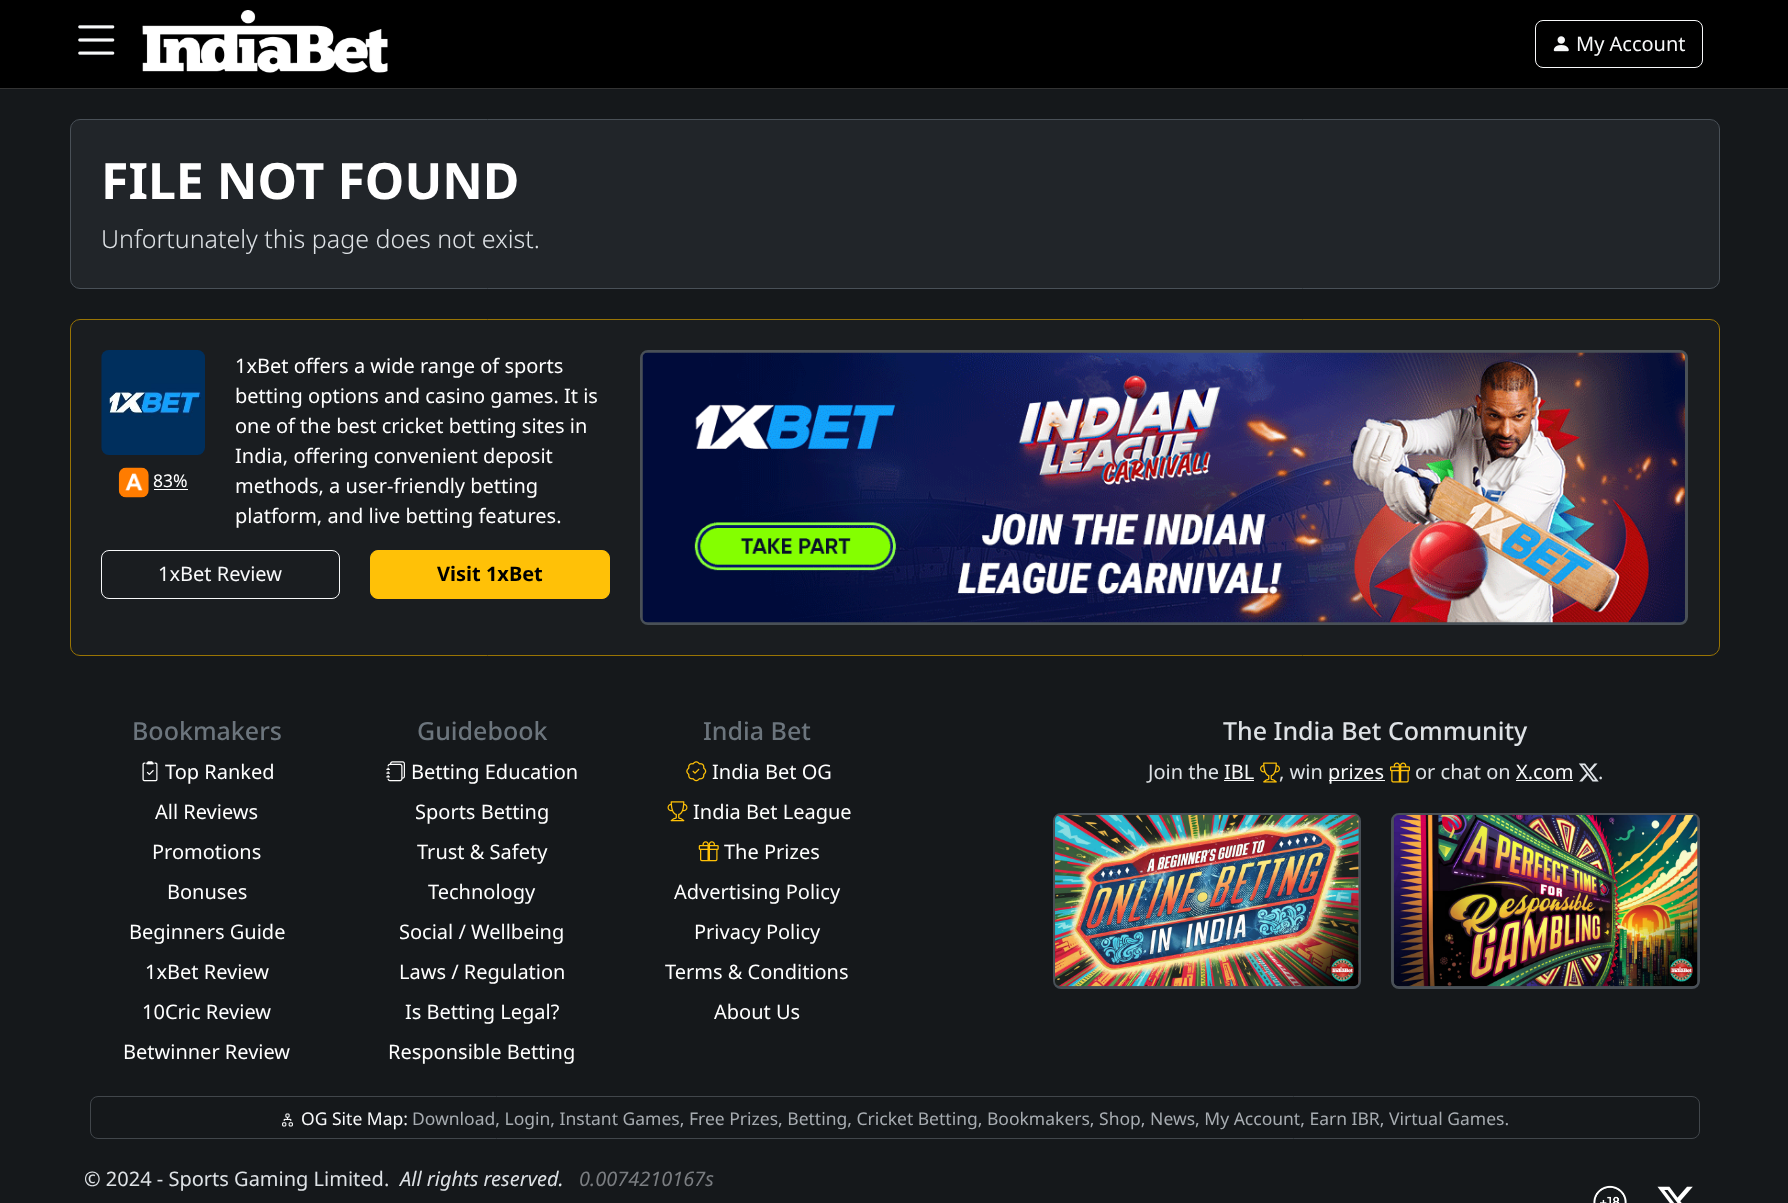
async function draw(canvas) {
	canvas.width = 1788;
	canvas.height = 1203;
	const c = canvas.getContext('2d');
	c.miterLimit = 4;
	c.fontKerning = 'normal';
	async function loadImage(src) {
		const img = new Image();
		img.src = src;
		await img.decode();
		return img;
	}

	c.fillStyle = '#15181b';
	c.fillRect(0, 0, 1788, 1203);
	c.fillStyle = '#000';
	c.fillRect(0, 0, 1788, 88);
	c.fillStyle = '#333';
	c.fillRect(0, 88, 1788, 1);
	c.drawImage(await loadImage('img1.png'), 78, 25, 37, 30);
	c.drawImage(await loadImage('img2.png'), 142, 10, 246, 63);
	c.beginPath();
	c.roundRect(1535.5, 20.5, 167, 47, 7.5);
	c.strokeStyle = '#f8f9fa';
	c.stroke();
	c.drawImage(await loadImage('img3.png'), 1553, 36, 16, 16);
	c.font = '20px Noto Sans';
	c.fillStyle = '#f8f9fa';
	c.fillText('My Account', 1576, 51);
	c.fillStyle = '#212529';
	c.beginPath();
	c.roundRect(70.5, 119.5, 1649, 169, 9.5);
	c.fill();
	c.strokeStyle = '#495057';
	c.stroke();
	c.font = 'bold 50px Noto Sans';
	c.fillStyle = '#fff';
	c.fillText('FILE NOT FOUND', 101, 199);
	c.font = '300 25px Noto Sans';
	c.fillStyle = '#dee2e6';
	c.fillText('Unfortunately this page does not exist.', 101, 248);
	c.fillStyle = '#1a1d20';
	c.beginPath();
	c.roundRect(70.5, 319.5, 1649, 336, 9.5);
	c.fill();
	c.strokeStyle = '#997404';
	c.stroke();
	c.drawImage(await loadImage('img4.png'), 101, 350, 104, 105);
	c.drawImage(await loadImage('img5.png'), 118, 467, 31, 31);
	c.font = '17.5px Noto Sans';
	c.fillStyle = '#fff';
	c.fillText('83%', 153, 487);
	c.fillRect(154, 489, 34, 1);
	c.font = '20px Noto Sans';
	for (const [text, x, y] of [
		['1xBet offers a wide range of sports', 235, 373],
		['betting options and casino games. It is', 235, 403],
		['one of the best cricket betting sites in', 235, 433],
		['India, offering convenient deposit', 235, 463],
		['methods, a user-friendly betting', 235, 493],
		['platform, and live betting features.', 235, 523],
	]) {
		c.fillText(text, x, y);
	}
	c.beginPath();
	c.roundRect(101.5, 550.5, 238, 48, 7.5);
	c.strokeStyle = '#f8f9fa';
	c.stroke();
	c.fillStyle = '#f8f9fa';
	c.fillText('1xBet Review', 158, 581);
	c.fillStyle = '#ffc107';
	c.beginPath();
	c.roundRect(370.5, 550.5, 239, 48, 7.5);
	c.fill();
	c.strokeStyle = '#ffc107';
	c.stroke();
	c.font = 'bold 20px Noto Sans';
	c.fillStyle = '#000';
	c.fillText('Visit 1xBet', 437, 581);
	c.beginPath();
	c.roundRect(641.5, 351.5, 1045, 272, 6.5);
	c.strokeStyle = '#495057';
	c.lineWidth = 3;
	c.stroke();
	c.drawImage(await loadImage('img6.png'), 642, 352, 1043, 271);
	c.font = '500 25px Noto Sans';
	c.fillStyle = '#6c757d';
	c.fillText('Bookmakers', 132, 740);
	c.drawImage(await loadImage('img7.png'), 142, 761, 16, 21);
	c.font = '20px Noto Sans';
	c.fillStyle = '#fff';
	for (const [text, x, y] of [
		['Top Ranked', 165, 779],
		['All Reviews', 155, 819],
		['Promotions', 152, 859],
		['Bonuses', 167, 899],
		['Beginners Guide', 129, 939],
		['1xBet Review', 145, 979],
		['10Cric Review', 142, 1019],
		['Betwinner Review', 123, 1059],
	]) {
		c.fillText(text, x, y);
	}
	c.font = '500 25px Noto Sans';
	c.fillStyle = '#6c757d';
	c.fillText('Guidebook', 417, 740);
	c.drawImage(await loadImage('img8.png'), 386, 761, 19, 21);
	c.font = '20px Noto Sans';
	c.fillStyle = '#fff';
	for (const [text, x, y] of [
		['Betting Education', 411, 779],
		['Sports Betting', 415, 819],
		['Trust & Safety', 417, 859],
		['Technology', 428, 899],
		['Social / Wellbeing', 399, 939],
		['Laws / Regulation', 399, 979],
		['Is Betting Legal?', 405, 1019],
		['Responsible Betting', 388, 1059],
	]) {
		c.fillText(text, x, y);
	}
	c.font = '500 25px Noto Sans';
	c.fillStyle = '#6c757d';
	c.fillText('India Bet', 703, 740);
	c.drawImage(await loadImage('img9.png'), 686, 761, 21, 21);
	c.font = '20px Noto Sans';
	c.fillStyle = '#fff';
	c.fillText('India Bet OG', 712, 779);
	c.drawImage(await loadImage('img10.png'), 667, 801, 21, 21);
	c.fillText('India Bet League', 693, 819);
	c.drawImage(await loadImage('img11.png'), 698, 841, 21, 21);
	for (const [text, x, y] of [
		['The Prizes', 724, 859],
		['Advertising Policy', 674, 899],
		['Privacy Policy', 694, 939],
		['Terms & Conditions', 665, 979],
		['About Us', 714, 1019],
	]) {
		c.fillText(text, x, y);
	}
	c.font = '500 25px Noto Sans';
	c.fillStyle = '#dee2e6';
	c.fillText('The India Bet Community', 1223, 740);
	c.font = '20px Noto Sans';
	c.fillText('Join the', 1148, 779);
	c.fillStyle = '#f8f9fa';
	c.fillText('IBL', 1224, 779);
	c.fillRect(1224, 780, 30, 1);
	c.drawImage(await loadImage('img12.png'), 1260, 762, 20, 21);
	c.fillStyle = '#dee2e6';
	c.fillText(', win', 1279, 779);
	c.fillStyle = '#f8f9fa';
	c.fillRect(1329, 780, 56, 1);
	c.fillText('prizes', 1328, 779);
	c.drawImage(await loadImage('img13.png'), 1390, 762, 20, 21);
	c.fillStyle = '#dee2e6';
	c.fillText('or chat on', 1415, 779);
	c.fillStyle = '#f8f9fa';
	c.fillText('X.com', 1516, 779);
	c.fillRect(1516, 780, 57, 1);
	c.drawImage(await loadImage('img14.png'), 1578, 763, 21, 19);
	c.fillStyle = '#dee2e6';
	c.fillText('.', 1598, 779);
	c.beginPath();
	c.roundRect(1054.5, 814.5, 305, 173, 6.5);
	c.stroke();
	c.drawImage(await loadImage('img15.png'), 1055, 815, 304, 172);
	c.beginPath();
	c.roundRect(1392.5, 814.5, 306, 173, 6.5);
	c.stroke();
	c.drawImage(await loadImage('img16.png'), 1393, 815, 305, 172);
	c.beginPath();
	c.roundRect(90.5, 1096.5, 1609, 42, 7.5);
	c.strokeStyle = '#41464b';
	c.lineWidth = 1;
	c.stroke();
	c.drawImage(await loadImage('img17.png'), 282, 1113, 11, 14);
	c.font = '17.5px Noto Sans';
	c.fillStyle = '#f8f9fa';
	c.fillText('OG Site Map:', 301, 1125);
	c.fillStyle = '#a7acb1';
	c.fillText('Download, Login, Instant Games, Free Prizes, Betting, Cricket Betting, Bookmakers, Shop, News, My Account, Earn IBR, Virtual Games.', 412, 1125);
	c.font = '20px Noto Sans';
	c.fillStyle = '#dee2e6';
	c.fillText('© 2024 - Sports Gaming Limited.', 84, 1186);
	c.font = 'italic 20px Noto Sans';
	c.fillText('All rights reserved.', 400, 1186);
	c.fillStyle = '#7a7d81';
	c.fillText('0.0074210167s', 579, 1186);
	c.drawImage(await loadImage('img18.png'), 1593, 1185, 34, 18);
	c.drawImage(await loadImage('img19.png'), 1657, 1186, 36, 17);
}

draw(document.querySelector('canvas'));
